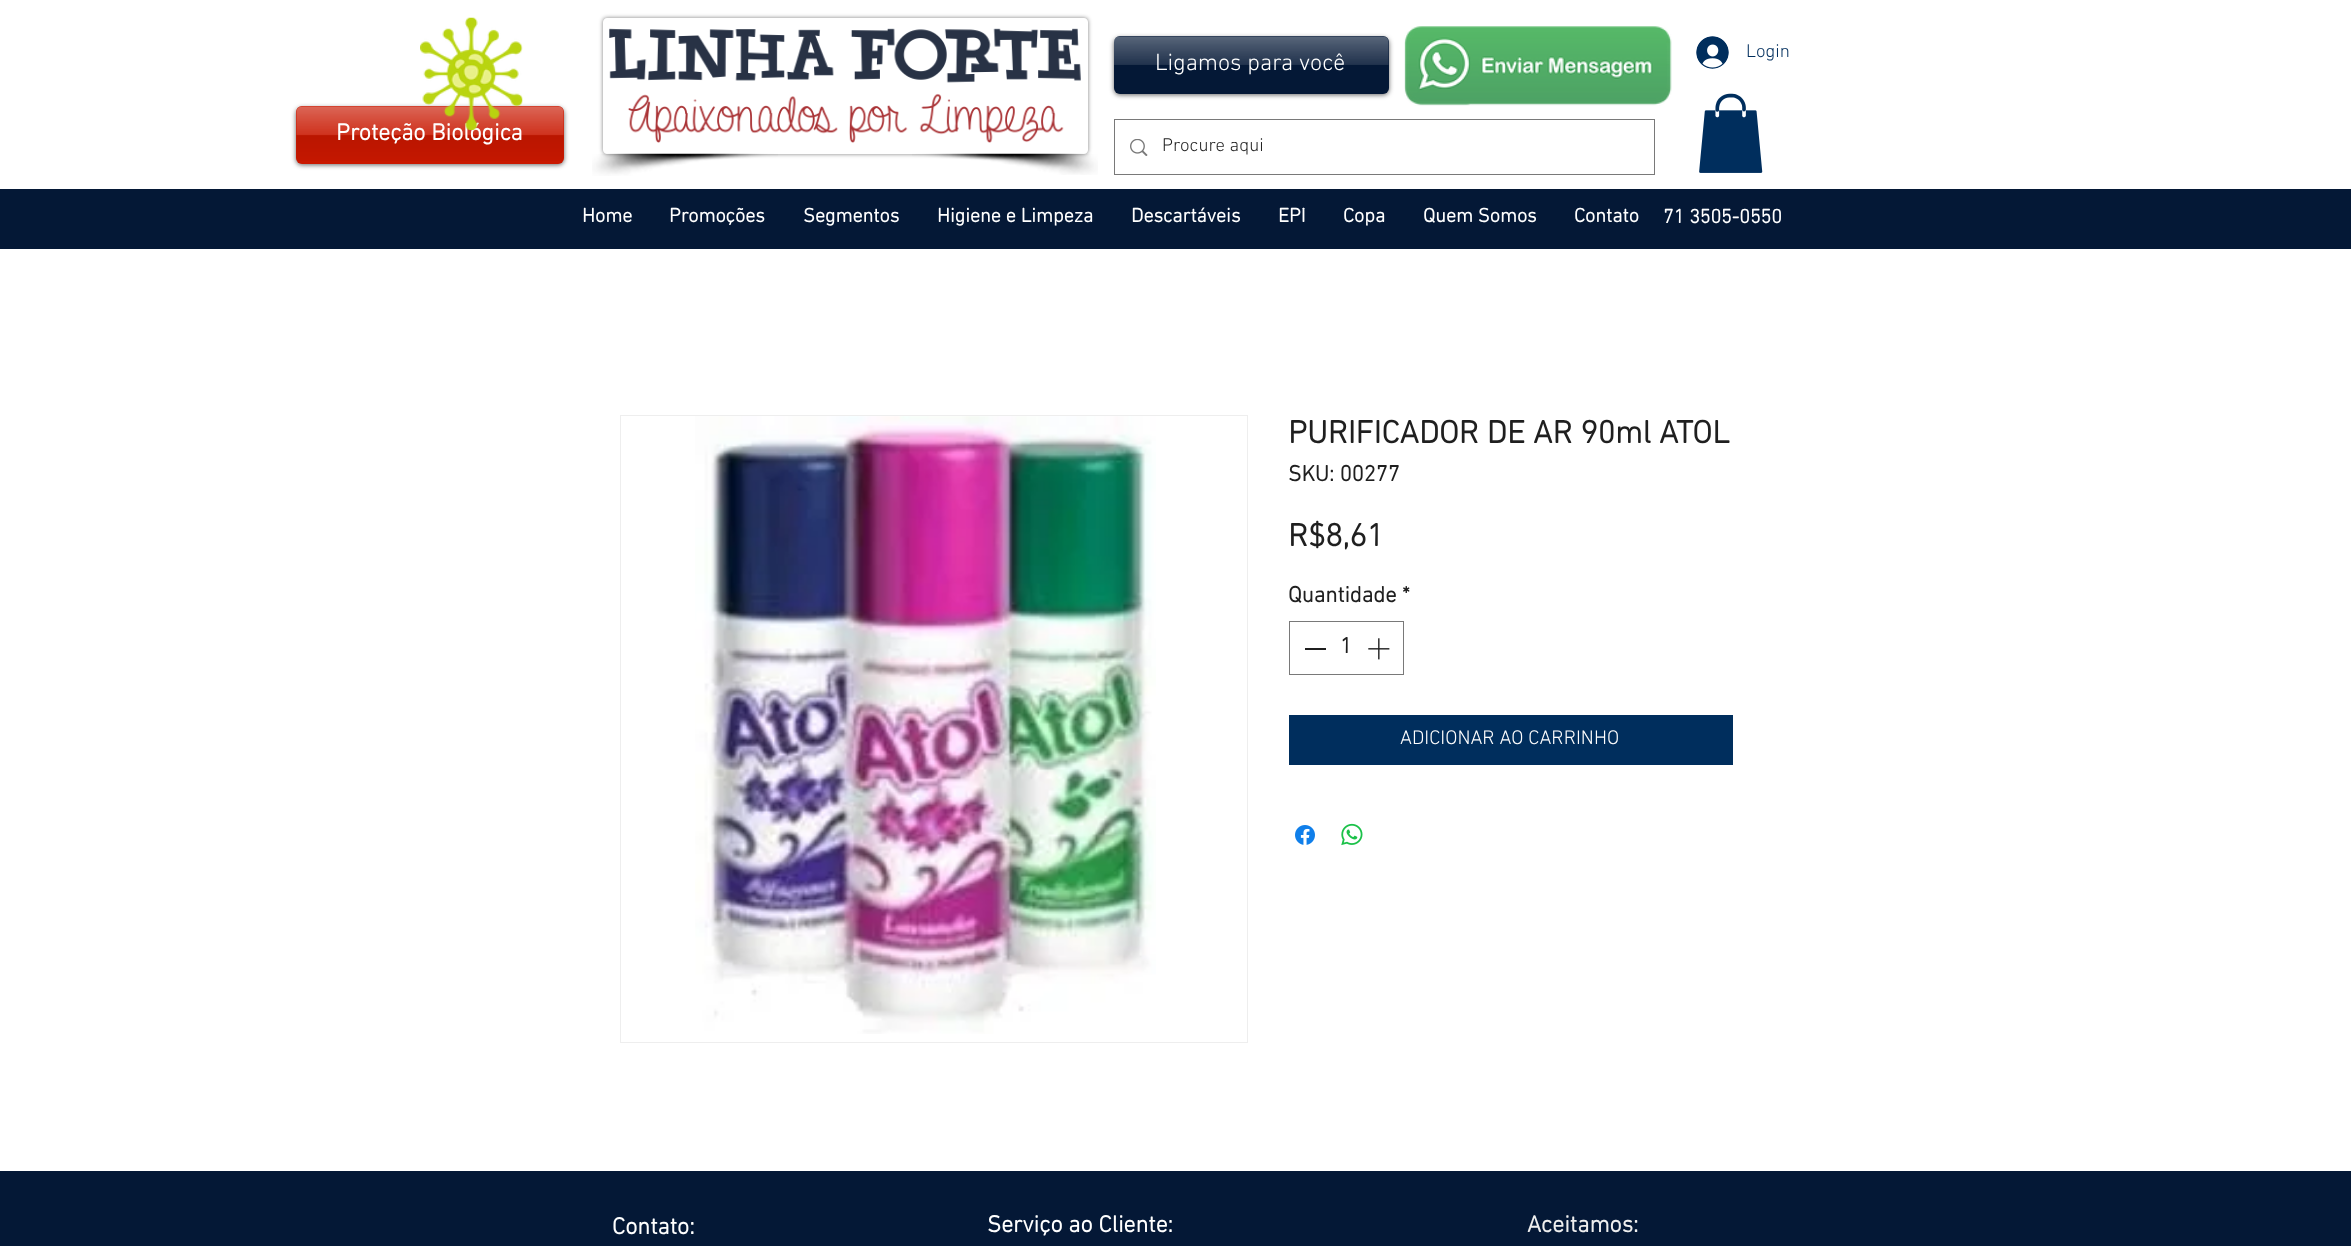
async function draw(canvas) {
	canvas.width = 2351;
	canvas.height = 1246;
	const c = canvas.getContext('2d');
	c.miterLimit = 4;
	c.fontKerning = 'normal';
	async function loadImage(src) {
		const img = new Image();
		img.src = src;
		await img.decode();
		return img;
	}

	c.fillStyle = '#fff';
	c.fillRect(0, 0, 2351, 1246);
	c.fillStyle = '#00000099';
	c.filter = 'blur(2.5px)';
	c.beginPath();
	c.roundRect(296, 108, 268, 57, 6);
	c.fill();
	c.filter = 'none';
	c.fillStyle = '#c91800';
	c.beginPath();
	c.roundRect(296, 106, 268, 58, 6);
	c.fill();
	c.drawImage(await loadImage('img8.png'), 296, 106, 268, 55);
	c.font = 'bold 23.75px "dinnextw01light"';
	c.fillStyle = '#fff';
	c.fillText('Proteção Biológica', 336, 140);
	c.drawImage(await loadImage('img1.png'), 420, 17, 103, 113);
	c.save();
	c.beginPath();
	c.moveTo(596, 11);
	c.lineTo(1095, 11);
	c.lineTo(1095, 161);
	c.lineTo(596, 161);
	c.closePath();
	c.moveTo(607, 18);
	c.lineTo(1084, 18);
	c.bezierCurveTo(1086, 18, 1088, 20, 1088, 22);
	c.lineTo(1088, 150);
	c.bezierCurveTo(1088, 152, 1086, 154, 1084, 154);
	c.lineTo(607, 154);
	c.bezierCurveTo(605, 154, 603, 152, 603, 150);
	c.lineTo(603, 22);
	c.bezierCurveTo(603, 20, 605, 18, 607, 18);
	c.closePath();
	c.clip('evenodd');
	c.fillStyle = '#00000080';
	c.filter = 'blur(2px)';
	c.beginPath();
	c.roundRect(603, 18, 485, 136, 4);
	c.fill();
	c.filter = 'none';
	c.restore();
	c.drawImage(await loadImage('img2.png'), 609, 28, 472, 115);
	c.drawImage(await loadImage('img3.png'), 592, 153, 186, 23);
	c.drawImage(await loadImage('img4.png'), 912, 153, 186, 22);
	c.fillStyle = '#00000099';
	c.filter = 'blur(2.5px)';
	c.beginPath();
	c.roundRect(1114, 38, 275, 57, 6);
	c.fill();
	c.filter = 'none';
	c.fillStyle = '#041836';
	c.beginPath();
	c.roundRect(1114, 36, 275, 58, 6);
	c.fill();
	c.drawImage(await loadImage('img5.png'), 1114, 36, 275, 29);
	c.font = '300 23.75px "dinnextw01light"';
	c.fillStyle = '#fff';
	c.fillText('Ligamos para você', 1155, 70);
	c.drawImage(await loadImage('img6.png'), 1404, 26, 268, 80);
	c.drawImage(await loadImage('img7.png'), 1696, 36, 33, 33);
	c.font = '300 18.75px "dinnextw01light"';
	c.fillStyle = '#002e5d';
	c.fillText('Login', 1746, 57);
	c.strokeStyle = '#797979';
	c.strokeRect(1114.5, 119.5, 540, 55);
	c.drawImage(await loadImage('img9.png'), 1130, 139, 18, 17);
	c.fillStyle = '#1f1f1f';
	c.fillText('Procure aqui', 1162, 151);
	c.drawImage(await loadImage('img10.png'), 1699, 93, 64, 80);
	c.fillStyle = '#041836';
	c.fillRect(0, 189, 2351, 60);
	c.font = 'bold 20px "dinnextw01light"';
	c.fillStyle = '#fff';
	for (const [text, x, y] of [
		['Home', 582, 222],
		['Promoções', 669, 222],
		['Segmentos', 803, 222],
		['Higiene e Limpeza', 937, 222],
		['Descartáveis', 1131, 222],
		['EPI', 1278, 222],
		['Copa', 1343, 222],
		['Quem Somos', 1423, 222],
		['Contato', 1574, 222],
		['71 3505-0550', 1663, 223],
	]) {
		c.fillText(text, x, y);
	}
	c.strokeStyle = '#eee';
	c.strokeRect(620.5, 415.5, 627, 627);
	c.drawImage(await loadImage('img11.png'), 695, 416, 461, 618);
	c.font = 'bold 32.5px "dinnextw01light"';
	c.fillStyle = '#1f1f1f';
	c.fillText('PURIFICADOR DE AR 90ml ATOL', 1288, 443);
	c.font = 'bold 22.5px "dinnextw01light"';
	c.fillText('SKU: 00277', 1288, 481);
	c.font = 'bold 32.5px "dinnextw01light"';
	c.fillText('R$8,61', 1288, 546);
	c.font = 'bold 22.5px "dinnextw01light"';
	c.fillText('Quantidade', 1288, 602);
	c.fillText('*', 1402, 602);
	c.strokeStyle = '#797979';
	c.strokeRect(1289.5, 621.5, 114, 53);
	c.fillRect(1305, 648, 21, 2);
	c.fillText('1', 1340, 653);
	c.drawImage(await loadImage('img12.png'), 1368, 638, 22, 22);
	c.fillStyle = '#002e5d';
	c.fillRect(1289, 715, 444, 50);
	c.font = '300 20px "dinnextw01light"';
	c.fillStyle = '#fff';
	c.fillText('ADICIONAR AO CARRINHO', 1400, 744);
	c.drawImage(await loadImage('img13.png'), 1295, 825, 20, 20);
	c.drawImage(await loadImage('img14.png'), 1341, 823, 22, 23);
	c.fillStyle = '#041836';
	c.fillRect(0, 1171, 2351, 75);
	c.font = 'bold 23.75px "dinnextw01light"';
	c.fillStyle = '#fff';
	c.fillText('Contato:', 612, 1234);
	c.fillText('Serviço ao Cliente:', 987, 1232);
	c.fillStyle = '#eee';
	c.fillText('Aceitamos:', 1527, 1232);
}

draw(document.querySelector('canvas'));
